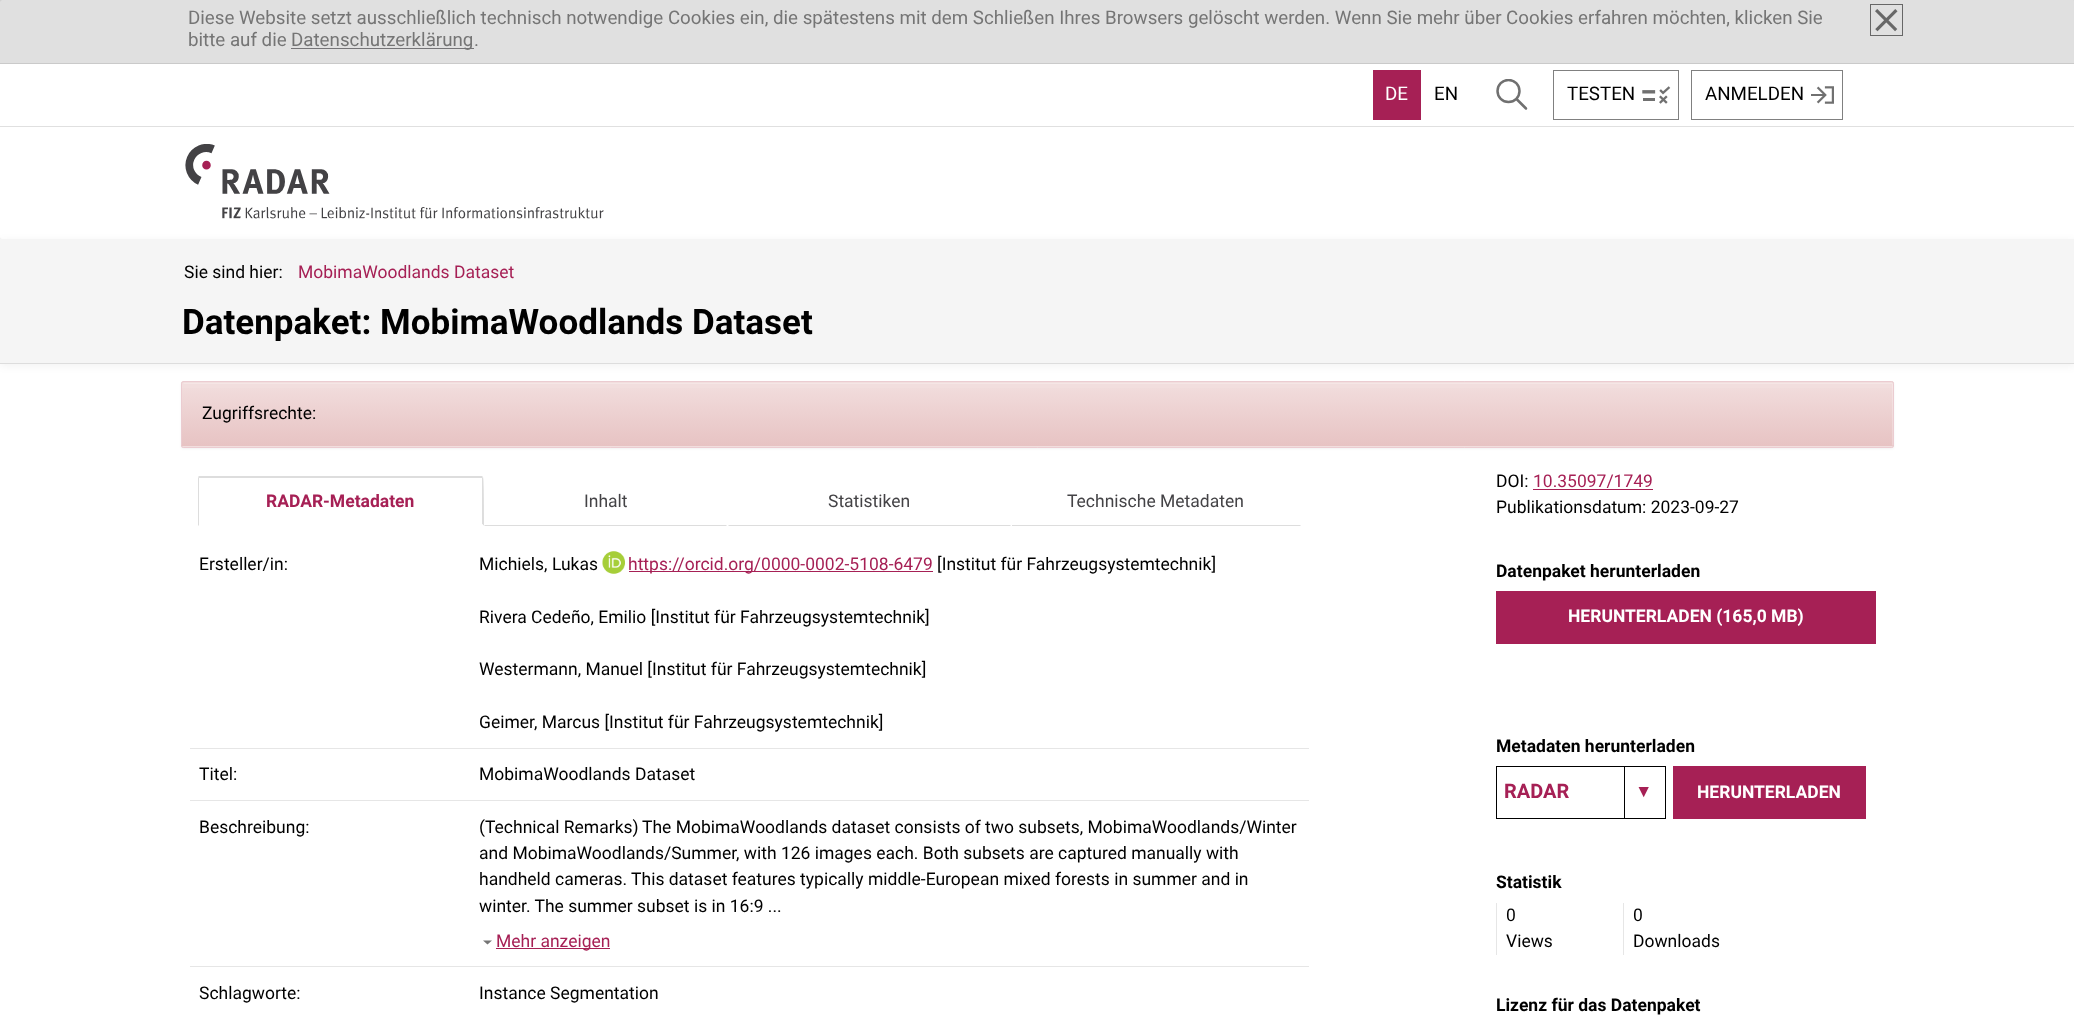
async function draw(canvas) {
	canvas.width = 2074;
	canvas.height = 1016;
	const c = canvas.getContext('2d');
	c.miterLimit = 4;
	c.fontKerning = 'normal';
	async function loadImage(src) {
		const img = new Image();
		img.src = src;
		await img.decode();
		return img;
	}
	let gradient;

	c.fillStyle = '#fff';
	c.fillRect(0, 0, 2074, 1016);
	c.fillStyle = '#0000001a';
	c.filter = 'blur(7.5px)';
	c.beginPath();
	c.roundRect(0, -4, 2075, 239, 2.5);
	c.fill();
	c.filter = 'none';
	c.filter = 'blur(2.5px)';
	c.beginPath();
	c.roundRect(0, 0, 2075, 239, 2.5);
	c.fill();
	c.filter = 'none';
	c.fillStyle = '#fff';
	c.beginPath();
	c.roundRect(0, 0, 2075, 239, 2.5);
	c.fill();
	c.fillStyle = '#0000001f';
	c.fillRect(0, 0, 2074, 63);
	c.fillStyle = '#cacaca';
	c.fillRect(0, 63, 2074, 1);
	c.font = '18.75px Roboto';
	c.fillStyle = '#757575';
	c.fillText('Diese Website setzt ausschließlich technisch notwendige Cookies ein, die spätestens mit dem Schließen Ihres Browsers gelöscht werden. Wenn Sie mehr über Cookies erfahren möchten, klicken Sie', 188, 24);
	c.fillText('bitte auf die', 188, 46);
	c.fillStyle = '#757477';
	c.fillRect(291, 48, 183, 1);
	c.fillStyle = '#757575';
	c.fillText('Datenschutzerklärung', 291, 46);
	c.fillText('.', 474, 46);
	c.strokeStyle = '#676767';
	c.strokeRect(1870.5, 4.5, 32, 31);
	c.drawImage(await loadImage('img1.png'), 1875, 9, 23, 23);
	c.fillStyle = '#a62055';
	c.fillRect(1373, 70, 48, 50);
	c.fillStyle = '#fff';
	c.fillText('DE', 1385, 100);
	c.fillStyle = '#000';
	c.fillText('EN', 1434, 100);
	c.save();
	c.beginPath();
	c.rect(1496, 79, 32, 31);
	c.clip();
	c.beginPath();
	c.arc(1508.5, 91, 11, 0, 2 * Math.PI);
	c.strokeStyle = '#707070';
	c.lineWidth = 2.5;
	c.stroke();
	c.restore();
	c.beginPath();
	c.moveTo(1517, 99.5);
	c.lineTo(1526, 108.5);
	c.strokeStyle = '#707070';
	c.lineWidth = 2.5;
	c.lineCap = 'round';
	c.stroke();
	c.strokeStyle = '#808080';
	c.lineWidth = 1;
	c.strokeRect(1553.5, 70.5, 125, 49);
	c.fillText('TESTEN', 1567, 100);
	c.drawImage(await loadImage('img2.png'), 1642, 86, 29, 18);
	c.strokeRect(1691.5, 70.5, 151, 49);
	c.fillText('ANMELDEN', 1705, 100);
	c.drawImage(await loadImage('img3.png'), 1811, 86, 23, 18);
	c.fillStyle = '#e0e0e0';
	c.fillRect(0, 126, 2074, 1);
	c.drawImage(await loadImage('img4.png'), 185, 144, 419, 75);
	c.fillStyle = '#0000000d';
	c.filter = 'blur(4px)';
	c.beginPath();
	c.rect(0, 241, 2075, 125);
	c.fill();
	c.filter = 'none';
	c.fillStyle = '#f5f5f5';
	c.fillRect(0, 239, 2074, 124);
	c.fillStyle = '#ddd';
	c.fillRect(0, 363, 2074, 1);
	c.font = '17.5px Roboto';
	c.fillStyle = '#000';
	c.fillText('Sie sind hier:', 184, 278);
	c.fillStyle = '#a62055';
	c.fillText('MobimaWoodlands Dataset', 298, 278);
	c.font = 'bold 35px Roboto';
	c.fillStyle = '#000';
	c.fillText('Datenpaket: MobimaWoodlands Dataset', 182, 334);
	c.fillStyle = '#0000000d';
	c.filter = 'blur(1px)';
	c.beginPath();
	c.roundRect(181, 383, 1713, 66, 2.5);
	c.fill();
	c.filter = 'none';
	c.fillStyle = '#f2dede';
	c.beginPath();
	c.roundRect(181, 381, 1713, 67, 2.5);
	c.fill();
	gradient = c.createLinearGradient(1038, 382, 1038, 446);
	gradient.addColorStop(0, '#f2dede');
	gradient.addColorStop(1, '#e7c3c3');
	c.fillStyle = gradient;
	c.fillRect(181, 388, 1713, 58);
	c.fillStyle = '#ffffff40';
	c.beginPath();
	c.moveTo(184, 384);
	c.lineTo(1891, 384);
	c.bezierCurveTo(1892, 384, 1892, 384, 1892, 385);
	c.lineTo(1892, 446);
	c.lineTo(1893, 445);
	c.lineTo(1893, 384);
	c.lineTo(1892, 383);
	c.lineTo(184, 383);
	c.lineTo(183, 384);
	c.closePath();
	c.fill();
	c.beginPath();
	c.roundRect(181.5, 381.5, 1712, 66, 2);
	c.strokeStyle = '#ebccd1';
	c.stroke();
	c.font = '17.5px Roboto';
	c.fillStyle = '#000';
	c.fillText('Zugriffsrechte:', 202, 419);
	c.fillStyle = '#ddd';
	c.beginPath();
	c.moveTo(200, 478);
	c.lineTo(199, 478);
	c.lineTo(198, 477);
	c.lineTo(199, 476);
	c.lineTo(482, 476);
	c.lineTo(483, 477);
	c.lineTo(482, 478);
	c.lineTo(481, 478);
	c.closePath();
	c.fill();
	c.beginPath();
	c.moveTo(484, 526);
	c.lineTo(482, 524);
	c.lineTo(482, 478);
	c.lineTo(483, 477);
	c.bezierCurveTo(484, 478, 484, 521, 484, 526);
	c.closePath();
	c.fill();
	c.fillStyle = '#fff';
	c.beginPath();
	c.moveTo(484, 526);
	c.lineTo(198, 526);
	c.lineTo(199, 525);
	c.lineTo(482, 525);
	c.lineTo(482, 524);
	c.closePath();
	c.fill();
	c.fillStyle = '#ddd';
	c.beginPath();
	c.moveTo(198, 526);
	c.lineTo(198, 477);
	c.lineTo(199, 478);
	c.lineTo(199, 525);
	c.closePath();
	c.fill();
	c.font = 'bold 17.5px Roboto';
	c.fillStyle = '#a62055';
	c.fillText('RADAR-Metadaten', 266, 507);
	c.fillStyle = '#ddd';
	c.beginPath();
	c.moveTo(727, 526);
	c.lineTo(484, 526);
	c.lineTo(485, 525);
	c.lineTo(726, 525);
	c.closePath();
	c.fill();
	c.font = '17.5px Roboto';
	c.fillStyle = '#444346';
	c.fillText('Inhalt', 584, 507);
	c.fillStyle = '#ddd';
	c.beginPath();
	c.moveTo(1011, 526);
	c.lineTo(1010, 525);
	c.lineTo(729, 525);
	c.lineTo(728, 526);
	c.closePath();
	c.fill();
	c.fillStyle = '#444346';
	c.fillText('Statistiken', 828, 507);
	c.fillStyle = '#ddd';
	c.beginPath();
	c.moveTo(1301, 526);
	c.lineTo(1300, 525);
	c.lineTo(1012, 525);
	c.lineTo(1012, 526);
	c.closePath();
	c.fill();
	c.fillStyle = '#444346';
	c.fillText('Technische Metadaten', 1067, 507);
	c.fillStyle = '#e6e6e6';
	c.fillRect(190, 748, 1119, 1);
	c.fillStyle = '#000';
	c.fillText('Ersteller/in:', 199, 570);
	c.fillText('Michiels, Lukas', 479, 570);
	c.drawImage(await loadImage('img5.png'), 602, 551, 23, 23);
	c.fillStyle = '#a62055';
	c.fillRect(629, 571, 304, 1);
	c.fillText('https://orcid.org/0000-0002-5108-6479', 628, 570);
	c.fillStyle = '#000';
	for (const [text, x, y] of [
		['[Institut für Fahrzeugsystemtechnik]', 937, 570],
		['Rivera Cedeño, Emilio [Institut für Fahrzeugsystemtechnik]', 479, 623],
		['Westermann, Manuel [Institut für Fahrzeugsystemtechnik]', 479, 675],
		['Geimer, Marcus [Institut für Fahrzeugsystemtechnik]', 479, 728],
	]) {
		c.fillText(text, x, y);
	}
	c.fillStyle = '#e6e6e6';
	c.fillRect(190, 800, 1119, 1);
	c.fillStyle = '#000';
	c.fillText('Titel:', 199, 780);
	c.fillText('MobimaWoodlands Dataset', 479, 780);
	c.fillStyle = '#e6e6e6';
	c.fillRect(190, 966, 1119, 1);
	c.fillStyle = '#000';
	for (const [text, x, y] of [
		['Beschreibung:', 199, 833],
		['(Technical Remarks)', 479, 833],
		['The MobimaWoodlands dataset consists of two subsets, MobimaWoodlands/Winter', 642, 833],
		['and MobimaWoodlands/Summer, with 126 images each. Both subsets are captured manually with', 479, 859],
		['handheld cameras. This dataset features typically middle-European mixed forests in summer and in', 479, 885],
		['winter. The summer subset is in 16:9 ...', 479, 912],
	]) {
		c.fillText(text, x, y);
	}
	c.fillStyle = '#757575';
	c.beginPath();
	c.moveTo(483, 940.5);
	c.lineTo(492, 940.5);
	c.lineTo(487.5, 944.5);
	c.closePath();
	c.fill();
	c.fillStyle = '#a62055';
	c.fillRect(496, 948, 114, 1);
	c.fillText('Mehr anzeigen', 496, 947);
	c.fillStyle = '#000';
	for (const [text, x, y] of [
		['Schlagworte:', 199, 999],
		['Instance Segmentation', 479, 999],
		['DOI:', 1496, 487],
	]) {
		c.fillText(text, x, y);
	}
	c.fillStyle = '#a62055';
	c.fillText('10.35097/1749', 1533, 487);
	c.fillRect(1533, 489, 120, 1);
	c.fillStyle = '#000';
	c.fillText('Publikationsdatum: 2023-09-27', 1496, 513);
	c.font = 'bold 17.5px Roboto';
	c.fillText('Datenpaket herunterladen', 1496, 577);
	c.fillStyle = '#a62055';
	c.fillRect(1496, 591, 380, 53);
	c.fillStyle = '#fff';
	c.fillText('HERUNTERLADEN (165,0 MB)', 1568, 622);
	c.fillStyle = '#000';
	c.fillText('Metadaten herunterladen', 1496, 752);
	c.strokeStyle = '#000';
	c.strokeRect(1496.5, 766.5, 169, 52);
	c.font = 'bold 20px Roboto';
	c.fillStyle = '#a62055';
	c.fillText('RADAR', 1504, 798);
	c.fillStyle = '#000';
	c.fillRect(1624, 766, 1, 53);
	c.font = '17.5px Liberation Sans';
	c.fillStyle = '#a62055';
	c.fillText('▼', 1635, 797);
	c.fillRect(1673, 766, 193, 53);
	c.font = 'bold 17.5px Roboto';
	c.fillStyle = '#fff';
	c.fillText('HERUNTERLADEN', 1697, 798);
	c.fillStyle = '#000';
	c.fillText('Statistik', 1496, 888);
	c.fillStyle = '#e6e6e6';
	c.fillRect(1496, 903, 1, 52);
	c.font = '17.5px Roboto';
	c.fillStyle = '#000';
	c.fillText('0', 1506, 921);
	c.fillText('Views', 1506, 947);
	c.fillStyle = '#e6e6e6';
	c.fillRect(1623, 903, 1, 52);
	c.fillStyle = '#000';
	c.fillText('0', 1633, 921);
	c.fillText('Downloads', 1633, 947);
	c.font = 'bold 17.5px Roboto';
	c.fillText('Lizenz für das Datenpaket', 1496, 1011);
}

draw(document.querySelector('canvas'));
